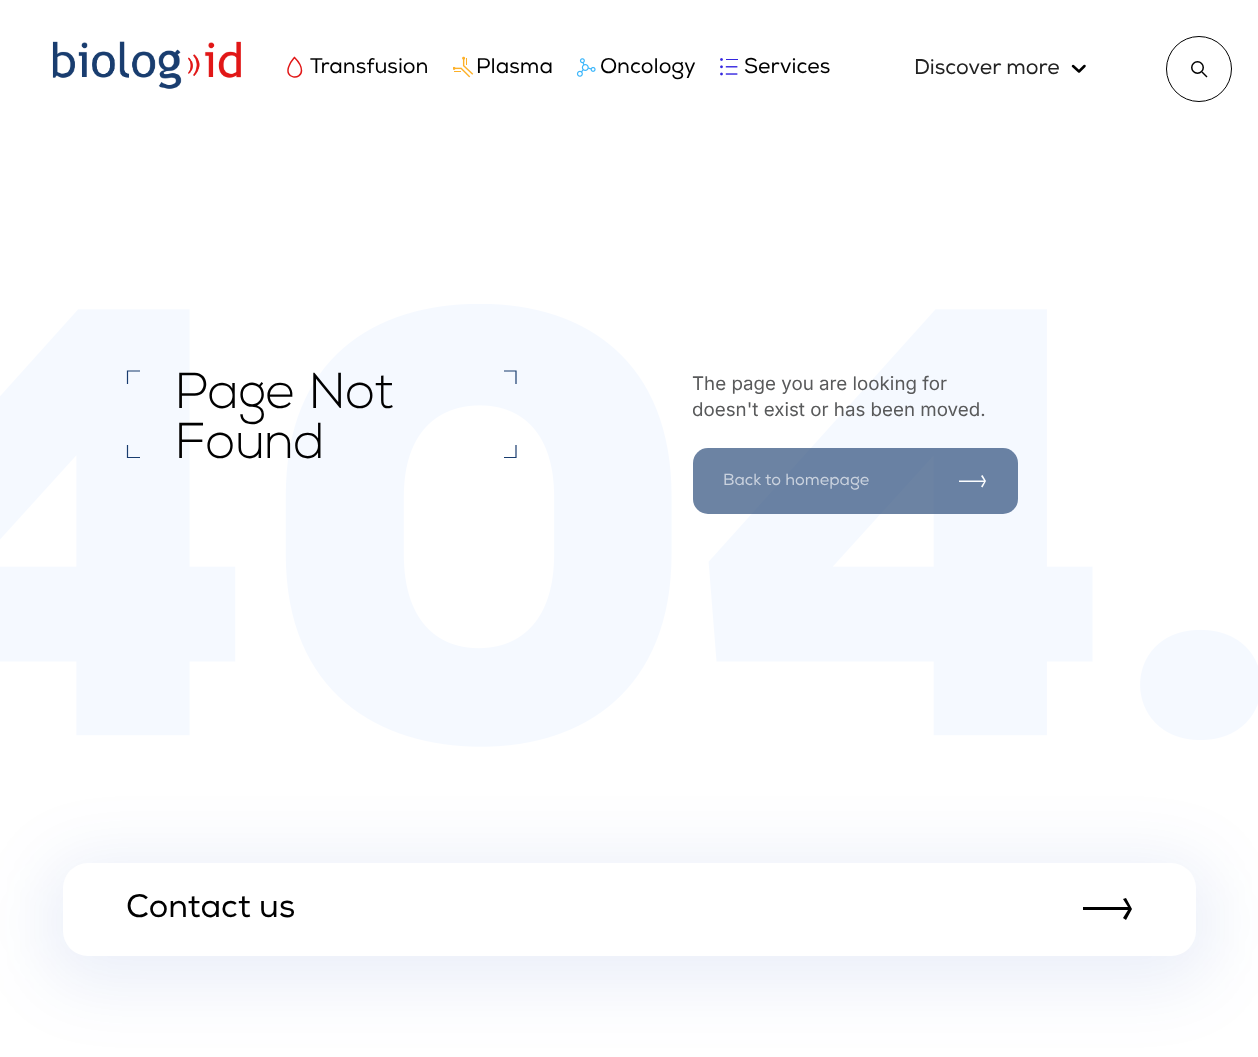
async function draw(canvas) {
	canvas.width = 1258;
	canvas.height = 1057;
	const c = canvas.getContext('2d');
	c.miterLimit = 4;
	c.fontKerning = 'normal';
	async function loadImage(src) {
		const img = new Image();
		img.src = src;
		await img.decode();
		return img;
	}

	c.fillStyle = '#fff';
	c.fillRect(0, 0, 1258, 1057);
	c.drawImage(await loadImage('img2.png'), 188, 54, 12, 22);
	c.drawImage(await loadImage('img1.png'), 52, 41, 189, 48);
	c.beginPath();
	c.moveTo(301.5, 70.5);
	c.bezierCurveTo(301.5, 80.5, 283.5, 79, 289, 66);
	c.bezierCurveTo(290, 62.5, 292.5, 60, 294.5, 57.5);
	c.bezierCurveTo(294.5, 57.5, 301.5, 64.5, 301.5, 70.5);
	c.closePath();
	c.strokeStyle = '#e11717';
	c.lineWidth = 1.5;
	c.stroke();
	c.font = '21.25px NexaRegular';
	c.fillStyle = '#000';
	c.fillText('Transfusion', 310, 73);
	c.drawImage(await loadImage('img3.png'), 453, 56, 21, 22);
	c.fillText('Plasma', 476, 73);
	c.drawImage(await loadImage('img4.png'), 576, 58, 20, 19);
	c.fillText('Oncology', 600, 73);
	c.drawImage(await loadImage('img5.png'), 720, 58, 18, 18);
	c.fillText('Services', 744, 73);
	c.fillStyle = '#222';
	c.fillText('Discover more', 914, 74);
	c.beginPath();
	c.moveTo(1073, 66);
	c.lineTo(1079, 71.5);
	c.lineTo(1084.5, 66);
	c.strokeStyle = '#000';
	c.lineWidth = 2.5;
	c.lineCap = 'round';
	c.lineJoin = 'round';
	c.stroke();
	c.beginPath();
	c.arc(1199, 69, 32.5, 0, 2 * Math.PI);
	c.lineWidth = 1;
	c.stroke();
	c.beginPath();
	c.arc(1197.5, 67.5, 5.75, 0, 2 * Math.PI);
	c.lineWidth = 1.5;
	c.stroke();
	c.beginPath();
	c.moveTo(1202, 72);
	c.lineTo(1207, 77);
	c.lineWidth = 1.4;
	c.lineCap = 'butt';
	c.lineJoin = 'miter';
	c.stroke();
	c.drawImage(await loadImage('img6.png'), 0, 304, 1258, 443);
	c.beginPath();
	c.moveTo(127.5, 384);
	c.lineTo(127.5, 371);
	c.lineTo(140, 371);
	c.strokeStyle = '#193d6f';
	c.lineWidth = 1.2;
	c.stroke();
	c.beginPath();
	c.moveTo(140, 457.5);
	c.lineTo(127.5, 457.5);
	c.lineTo(127.5, 445);
	c.stroke();
	c.font = '300 50.5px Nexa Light';
	c.fillStyle = '#000';
	c.fillText('Page Not', 176, 408);
	c.fillText('Found', 176, 458);
	c.beginPath();
	c.moveTo(516, 384);
	c.lineTo(516, 371);
	c.lineTo(504, 371);
	c.stroke();
	c.beginPath();
	c.moveTo(504, 457.5);
	c.lineTo(516, 457.5);
	c.lineTo(516, 445);
	c.stroke();
	c.font = '18.75px Inter';
	c.fillStyle = '#595a5b';
	c.fillText('The page you are looking for', 692, 390);
	c.fillText('doesn\'t exist or has been moved.', 692, 416);
	c.fillStyle = '#193d6fa3';
	c.beginPath();
	c.roundRect(693, 448, 325, 66, 15);
	c.fill();
	c.font = '16.25px NexaRegular';
	c.fillStyle = '#cad2de';
	c.fillText('Back to homepage', 723, 485);
	c.fillStyle = '#fbfdff';
	c.beginPath();
	c.moveTo(959, 482);
	c.lineTo(959, 480.5);
	c.lineTo(984, 480.5);
	c.lineTo(981, 476);
	c.lineTo(982.5, 475);
	c.lineTo(986, 481);
	c.lineTo(982.5, 487.5);
	c.lineTo(981, 486.5);
	c.lineTo(984, 482);
	c.closePath();
	c.fill();
	c.fillStyle = '#0132b714';
	c.filter = 'blur(34px)';
	c.beginPath();
	c.roundRect(45, 858, 1169, 128, 43);
	c.fill();
	c.filter = 'none';
	c.fillStyle = '#fff';
	c.beginPath();
	c.roundRect(63, 863, 1133, 93, 25);
	c.fill();
	c.font = '32.5px NexaRegular';
	c.fillStyle = '#000';
	c.fillText('Contact us', 126, 917);
	c.beginPath();
	c.moveTo(1083, 910);
	c.lineTo(1083, 907);
	c.lineTo(1128, 907);
	c.lineTo(1123, 899);
	c.lineTo(1126, 898);
	c.lineTo(1132, 909);
	c.lineTo(1126, 920);
	c.lineTo(1123, 918);
	c.lineTo(1128, 910);
	c.closePath();
	c.fill();
}

draw(document.querySelector('canvas'));
